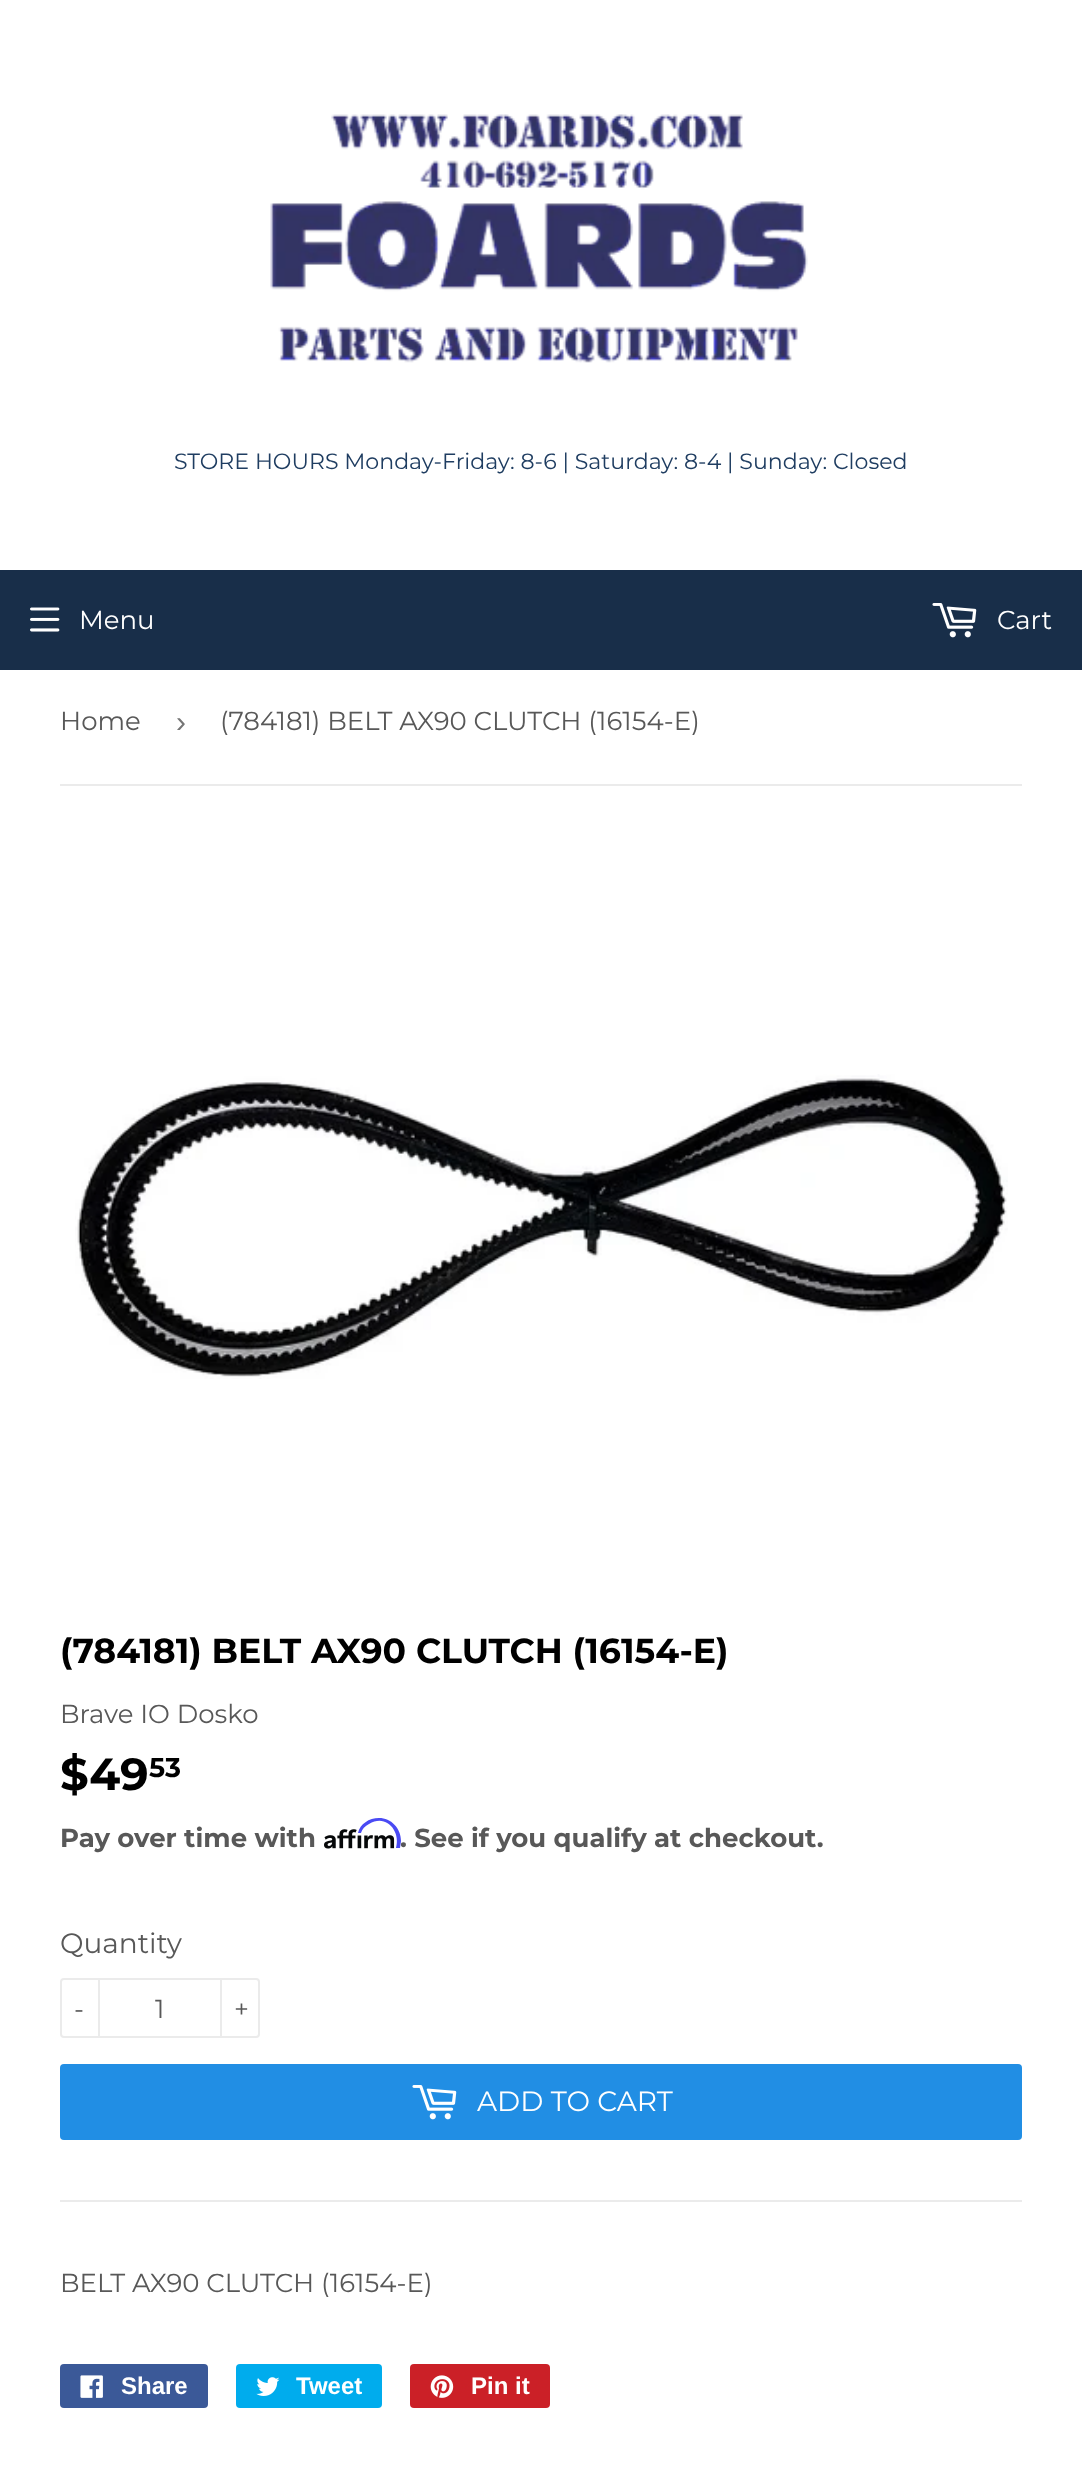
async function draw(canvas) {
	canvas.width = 1082;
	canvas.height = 2471;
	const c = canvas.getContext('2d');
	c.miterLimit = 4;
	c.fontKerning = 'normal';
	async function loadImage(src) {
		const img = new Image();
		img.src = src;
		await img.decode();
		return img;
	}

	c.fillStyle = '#fff';
	c.fillRect(0, 0, 1082, 2471);
	c.drawImage(await loadImage('img1.png'), 270, 114, 538, 249);
	c.font = '22.1px Montserrat';
	c.fillStyle = '#1f3d61';
	c.fillText('STORE HOURS Monday-Friday: 8-6 | Saturday: 8-4 | Sunday: Closed', 174, 469);
	c.fillStyle = '#182e49';
	c.fillRect(0, 570, 1082, 100);
	c.drawImage(await loadImage('img2.png'), 30, 607, 30, 25);
	c.font = '26px Montserrat';
	c.fillStyle = '#fff';
	c.fillText('Menu', 79, 629);
	c.drawImage(await loadImage('img3.png'), 932, 603, 45, 35);
	c.fillText('Cart', 997, 629);
	c.fillStyle = '#ebebeb';
	c.fillRect(60, 784, 962, 2);
	c.fillStyle = '#585858';
	c.fillText('Home', 60, 730);
	c.font = '30px Liberation Sans';
	c.fillStyle = '#767676';
	c.fillText('›', 176, 732);
	c.font = '26px Montserrat';
	c.fillStyle = '#585858';
	c.fillText('(784181) BELT AX90 CLUTCH (16154-E)', 220, 730);
	c.drawImage(await loadImage('img4.png'), 75, 1074, 933, 305);
	c.font = 'bold 34.7px Montserrat';
	c.fillStyle = '#000';
	c.fillText('(784181) BELT AX90 CLUTCH (16154-E)', 60, 1663);
	c.font = '26px Montserrat';
	c.fillStyle = '#585858';
	c.fillText('Brave IO Dosko', 60, 1723);
	c.font = 'bold 45px Montserrat';
	c.fillStyle = '#000';
	c.fillText('$49', 60, 1790);
	c.font = 'bold 27px Montserrat';
	c.fillText('53', 149, 1777);
	c.font = 'bold 26px Montserrat';
	c.fillStyle = '#585858';
	c.fillText('Pay over time with', 60, 1847);
	c.drawImage(await loadImage('img5.png'), 324, 1829, 71, 20);
	c.fillText('. See if you qualify at checkout.', 400, 1847);
	c.fillStyle = '#4a4af4';
	c.beginPath();
	c.moveTo(379, 1818);
	c.bezierCurveTo(369, 1818, 360, 1824, 358, 1833);
	c.lineTo(361, 1833);
	c.bezierCurveTo(362, 1829, 365, 1826, 369, 1824);
	c.bezierCurveTo(386, 1813, 401, 1831, 396, 1848);
	c.lineTo(400, 1848);
	c.lineTo(401, 1841);
	c.bezierCurveTo(401, 1828, 391, 1818, 379, 1818);
	c.closePath();
	c.fill();
	c.font = '28px Montserrat';
	c.fillStyle = '#585858';
	c.fillText('Quantity', 60, 1953);
	c.beginPath();
	c.roundRect(61, 1979, 198, 58, 3);
	c.strokeStyle = '#ebebeb';
	c.lineWidth = 2;
	c.stroke();
	c.fillStyle = '#ebebeb';
	c.fillRect(98, 1978, 2, 60);
	c.font = '26px Montserrat';
	c.fillStyle = '#585858';
	c.fillText('-', 74, 2018);
	c.fillText('1', 155, 2018);
	c.fillStyle = '#ebebeb';
	c.fillRect(220, 1978, 2, 60);
	c.fillStyle = '#585858';
	c.fillText('+', 234, 2018);
	c.fillStyle = '#218ee4';
	c.beginPath();
	c.roundRect(60, 2064, 962, 76, 4);
	c.fill();
	c.drawImage(await loadImage('img6.png'), 412, 2085, 45, 35);
	c.font = '28px Montserrat';
	c.fillStyle = '#fff';
	c.fillText('ADD TO CART', 477, 2111);
	c.fillStyle = '#ebebeb';
	c.fillRect(60, 2200, 962, 2);
	c.font = '26px Montserrat';
	c.fillStyle = '#585858';
	c.fillText('BELT AX90 CLUTCH (16154-E)', 60, 2292);
	c.fillStyle = '#3b5998';
	c.beginPath();
	c.roundRect(60, 2364, 148, 44, 4);
	c.fill();
	c.drawImage(await loadImage('img7.png'), 80, 2375, 23, 23);
	c.font = 'bold 24px Liberation Sans';
	c.fillStyle = '#fff';
	c.fillText('Share', 121, 2394);
	c.fillStyle = '#00aced';
	c.beginPath();
	c.roundRect(236, 2364, 146, 44, 4);
	c.fill();
	c.drawImage(await loadImage('img8.png'), 256, 2377, 24, 19);
	c.fillStyle = '#fff';
	c.fillText('Tweet', 296, 2394);
	c.fillStyle = '#cb2027';
	c.beginPath();
	c.roundRect(410, 2364, 140, 44, 4);
	c.fill();
	c.drawImage(await loadImage('img9.png'), 430, 2375, 24, 23);
	c.fillStyle = '#fff';
	c.fillText('Pin it', 471, 2394);
}

draw(document.querySelector('canvas'));
